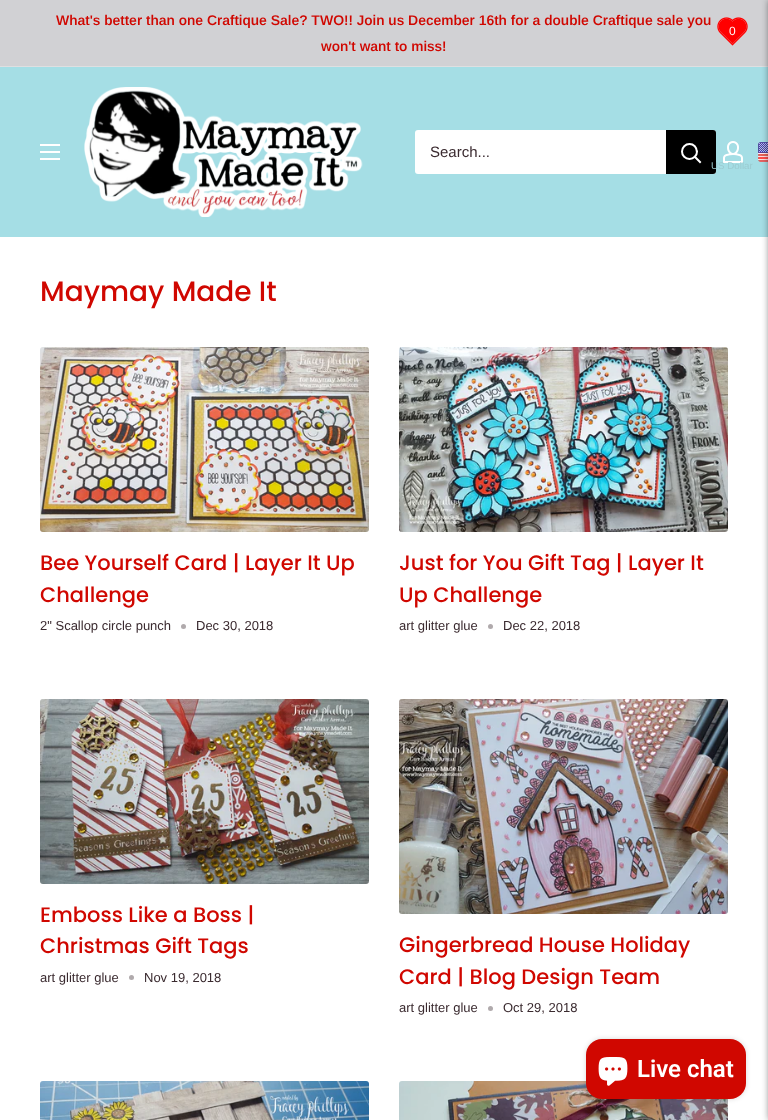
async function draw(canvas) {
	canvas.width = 768;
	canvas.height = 1120;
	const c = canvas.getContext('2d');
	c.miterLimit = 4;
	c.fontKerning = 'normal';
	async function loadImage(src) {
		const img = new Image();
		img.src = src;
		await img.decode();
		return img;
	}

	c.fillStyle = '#fff';
	c.fillRect(0, 0, 768, 1120);
	c.fillStyle = '#d1d1d4';
	c.fillRect(0, 0, 768, 66);
	c.fillStyle = '#dfdfe1';
	c.fillRect(0, 66, 768, 1);
	c.font = '600 14px Arimo';
	c.fillStyle = '#d00700';
	c.fillText('What\'s better than one Craftique Sale? TWO!! Join us December 16th for a double Craftique sale you', 56, 25);
	c.fillText('won\'t want to miss!', 321, 51);
	c.drawImage(await loadImage('img1.png'), 717, 17, 31, 29);
	c.font = '12px Arimo';
	c.fillStyle = '#fff';
	c.fillText('0', 729, 35);
	c.fillStyle = '#a5dee5';
	c.fillRect(0, 67, 768, 170);
	c.drawImage(await loadImage('img5.png'), 758, 142, 10, 20);
	c.fillStyle = '#00000080';
	c.filter = 'blur(3.5px)';
	c.beginPath();
	c.rect(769, 0, 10, 1120);
	c.fill();
	c.filter = 'none';
	c.drawImage(await loadImage('img2.png'), 40, 144, 20, 16);
	c.drawImage(await loadImage('img3.png'), 84, 87, 279, 130);
	c.fillStyle = '#fff';
	c.beginPath();
	c.roundRect(415, 130, 301, 44, 3);
	c.fill();
	c.font = '15px Arimo';
	c.fillStyle = '#3a2a2f';
	c.fillText('Search...', 430, 157);
	c.fillStyle = '#000';
	c.beginPath();
	c.roundRect(666, 130, 50, 44, [0, 3, 3, 0]);
	c.fill();
	c.beginPath();
	c.moveTo(700, 162);
	c.lineTo(695, 157);
	c.strokeStyle = '#fff';
	c.lineWidth = 2;
	c.lineCap = 'square';
	c.stroke();
	c.beginPath();
	c.arc(689.5, 151.5, 7.5, 0, 2 * Math.PI);
	c.stroke();
	c.drawImage(await loadImage('img4.png'), 723, 141, 20, 22);
	c.font = '9.75px Liberation Sans';
	c.fillStyle = '#9bcbd1';
	c.fillText('US Dollar', 711, 169);
	c.font = '500 28px Poppins';
	c.fillStyle = '#d00700';
	c.fillText('Maymay Made It', 40, 301);
	c.drawImage(await loadImage('img6.png'), 40, 347, 329, 185);
	c.font = '500 21px Poppins';
	c.fillText('Bee Yourself Card | Layer It Up', 40, 570);
	c.fillText('Challenge', 40, 602);
	c.font = '13px Arimo';
	c.fillStyle = '#3a2a2f';
	c.fillText('2" Scallop circle punch', 40, 630);
	c.fillStyle = '#b0aaac';
	c.beginPath();
	c.arc(183.5, 626.5, 2.5, 0, 2 * Math.PI);
	c.fill();
	c.fillStyle = '#3a2a2f';
	c.fillText('Dec 30, 2018', 196, 630);
	c.drawImage(await loadImage('img7.png'), 399, 347, 329, 185);
	c.font = '500 21px Poppins';
	c.fillStyle = '#d00700';
	c.fillText('Just for You Gift Tag | Layer It', 399, 570);
	c.fillText('Up Challenge', 399, 602);
	c.font = '13px Arimo';
	c.fillStyle = '#3a2a2f';
	c.fillText('art glitter glue', 399, 630);
	c.fillStyle = '#b0aaac';
	c.beginPath();
	c.arc(490.5, 626.5, 2.5, 0, 2 * Math.PI);
	c.fill();
	c.fillStyle = '#3a2a2f';
	c.fillText('Dec 22, 2018', 503, 630);
	c.drawImage(await loadImage('img8.png'), 40, 699, 329, 185);
	c.font = '500 21px Poppins';
	c.fillStyle = '#d00700';
	c.fillText('Emboss Like a Boss |', 40, 922);
	c.fillText('Christmas Gift Tags', 40, 953);
	c.font = '13px Arimo';
	c.fillStyle = '#3a2a2f';
	c.fillText('art glitter glue', 40, 982);
	c.fillStyle = '#b0aaac';
	c.beginPath();
	c.arc(131.5, 977.5, 2.5, 0, 2 * Math.PI);
	c.fill();
	c.fillStyle = '#3a2a2f';
	c.fillText('Nov 19, 2018', 144, 982);
	c.drawImage(await loadImage('img9.png'), 399, 699, 329, 215);
	c.font = '500 21px Poppins';
	c.fillStyle = '#d00700';
	c.fillText('Gingerbread House Holiday', 399, 952);
	c.fillText('Card | Blog Design Team', 399, 984);
	c.font = '13px Arimo';
	c.fillStyle = '#3a2a2f';
	c.fillText('art glitter glue', 399, 1012);
	c.fillStyle = '#b0aaac';
	c.beginPath();
	c.arc(490.5, 1008.5, 2.5, 0, 2 * Math.PI);
	c.fill();
	c.fillStyle = '#3a2a2f';
	c.fillText('Oct 29, 2018', 503, 1012);
	c.drawImage(await loadImage('img10.png'), 40, 1081, 329, 39);
	c.drawImage(await loadImage('img11.png'), 399, 1081, 329, 39);
	c.fillStyle = '#00000026';
	c.filter = 'blur(2.5px)';
	c.beginPath();
	c.roundRect(586, 1039, 160, 60, 16);
	c.fill();
	c.filter = 'none';
	c.fillStyle = '#d00700';
	c.beginPath();
	c.roundRect(586, 1039, 160, 60, 16);
	c.fill();
	c.drawImage(await loadImage('img12.png'), 598, 1057, 30, 29);
	c.font = '600 24px Roboto';
	c.fillStyle = '#fff';
	c.fillText('Live chat', 637, 1077);
}

draw(document.querySelector('canvas'));
